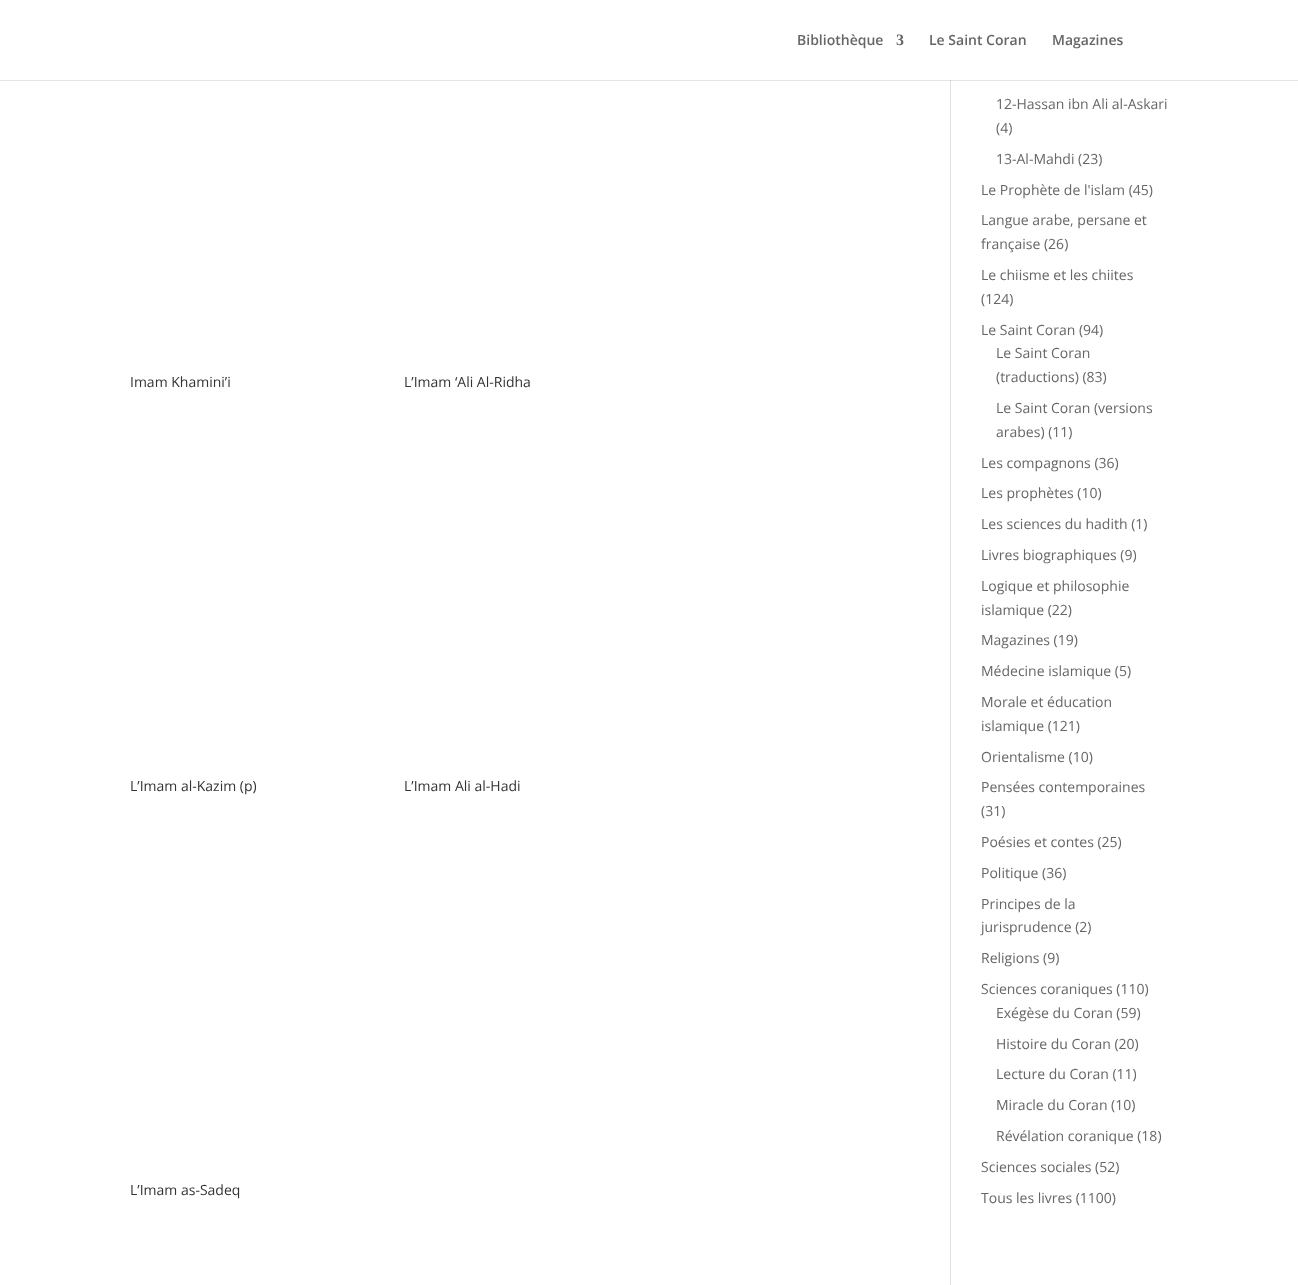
async function draw(canvas) {
	canvas.width = 1298;
	canvas.height = 1285;
	const c = canvas.getContext('2d');
	c.miterLimit = 4;
	c.fontKerning = 'normal';

	c.fillStyle = '#fff';
	c.fillRect(0, 0, 1298, 1285);
	c.fillStyle = '#e2e2e2';
	c.fillRect(950, 80, 1, 1205);
	c.fillStyle = '#0000001a';
	c.fillRect(0, 80, 1298, 1);
	c.font = '600 14px Open Sans';
	c.fillStyle = '#666';
	c.fillText('Bibliothèque', 797, 45);
	c.font = 'bold 16px Liberation Serif';
	c.fillText('3', 896, 45);
	c.font = '600 14px Open Sans';
	c.fillText('Le Saint Coran', 929, 45);
	c.fillText('Magazines', 1052, 45);
	c.font = '14px Open Sans';
	c.fillStyle = '#333';
	for (const [text, x, y] of [
		['Imam Khamini’i', 130, 387],
		['L’Imam ‘Ali Al-Ridha', 404, 387],
		['L’Imam al-Kazim (p)', 130, 791],
		['L’Imam Ali al-Hadi', 404, 791],
		['L’Imam as-Sadeq', 130, 1195],
	]) {
		c.fillText(text, x, y);
	}
	c.fillStyle = '#666';
	for (const [text, x, y] of [
		['12-Hassan ibn Ali al-Askari', 996, 109],
		['(4)', 996, 133],
		['13-Al-Mahdi (23)', 996, 164],
		['Le Prophète de l\'islam (45)', 981, 195],
		['Langue arabe, persane et', 981, 225],
		['française (26)', 981, 249],
		['Le chiisme et les chiites', 981, 280],
		['(124)', 981, 304],
		['Le Saint Coran (94)', 981, 335],
		['Le Saint Coran', 996, 358],
		['(traductions) (83)', 996, 382],
		['Le Saint Coran (versions', 996, 413],
		['arabes) (11)', 996, 437],
		['Les compagnons (36)', 981, 468],
		['Les prophètes (10)', 981, 498],
		['Les sciences du hadith (1)', 981, 529],
		['Livres biographiques (9)', 981, 560],
		['Logique et philosophie', 981, 591],
		['islamique (22)', 981, 615],
		['Magazines (19)', 981, 645],
		['Médecine islamique (5)', 981, 676],
		['Morale et éducation', 981, 707],
		['islamique (121)', 981, 731],
		['Orientalisme (10)', 981, 762],
		['Pensées contemporaines', 981, 792],
		['(31)', 981, 816],
		['Poésies et contes (25)', 981, 847],
		['Politique (36)', 981, 878],
		['Principes de la', 981, 909],
		['jurisprudence (2)', 981, 932],
		['Religions (9)', 981, 963],
		['Sciences coraniques (110)', 981, 994],
		['Exégèse du Coran (59)', 996, 1018],
		['Histoire du Coran (20)', 996, 1049],
		['Lecture du Coran (11)', 996, 1079],
		['Miracle du Coran (10)', 996, 1110],
		['Révélation coranique (18)', 996, 1141],
		['Sciences sociales (52)', 981, 1172],
		['Tous les livres (1100)', 981, 1203],
	]) {
		c.fillText(text, x, y);
	}
}

draw(document.querySelector('canvas'));
